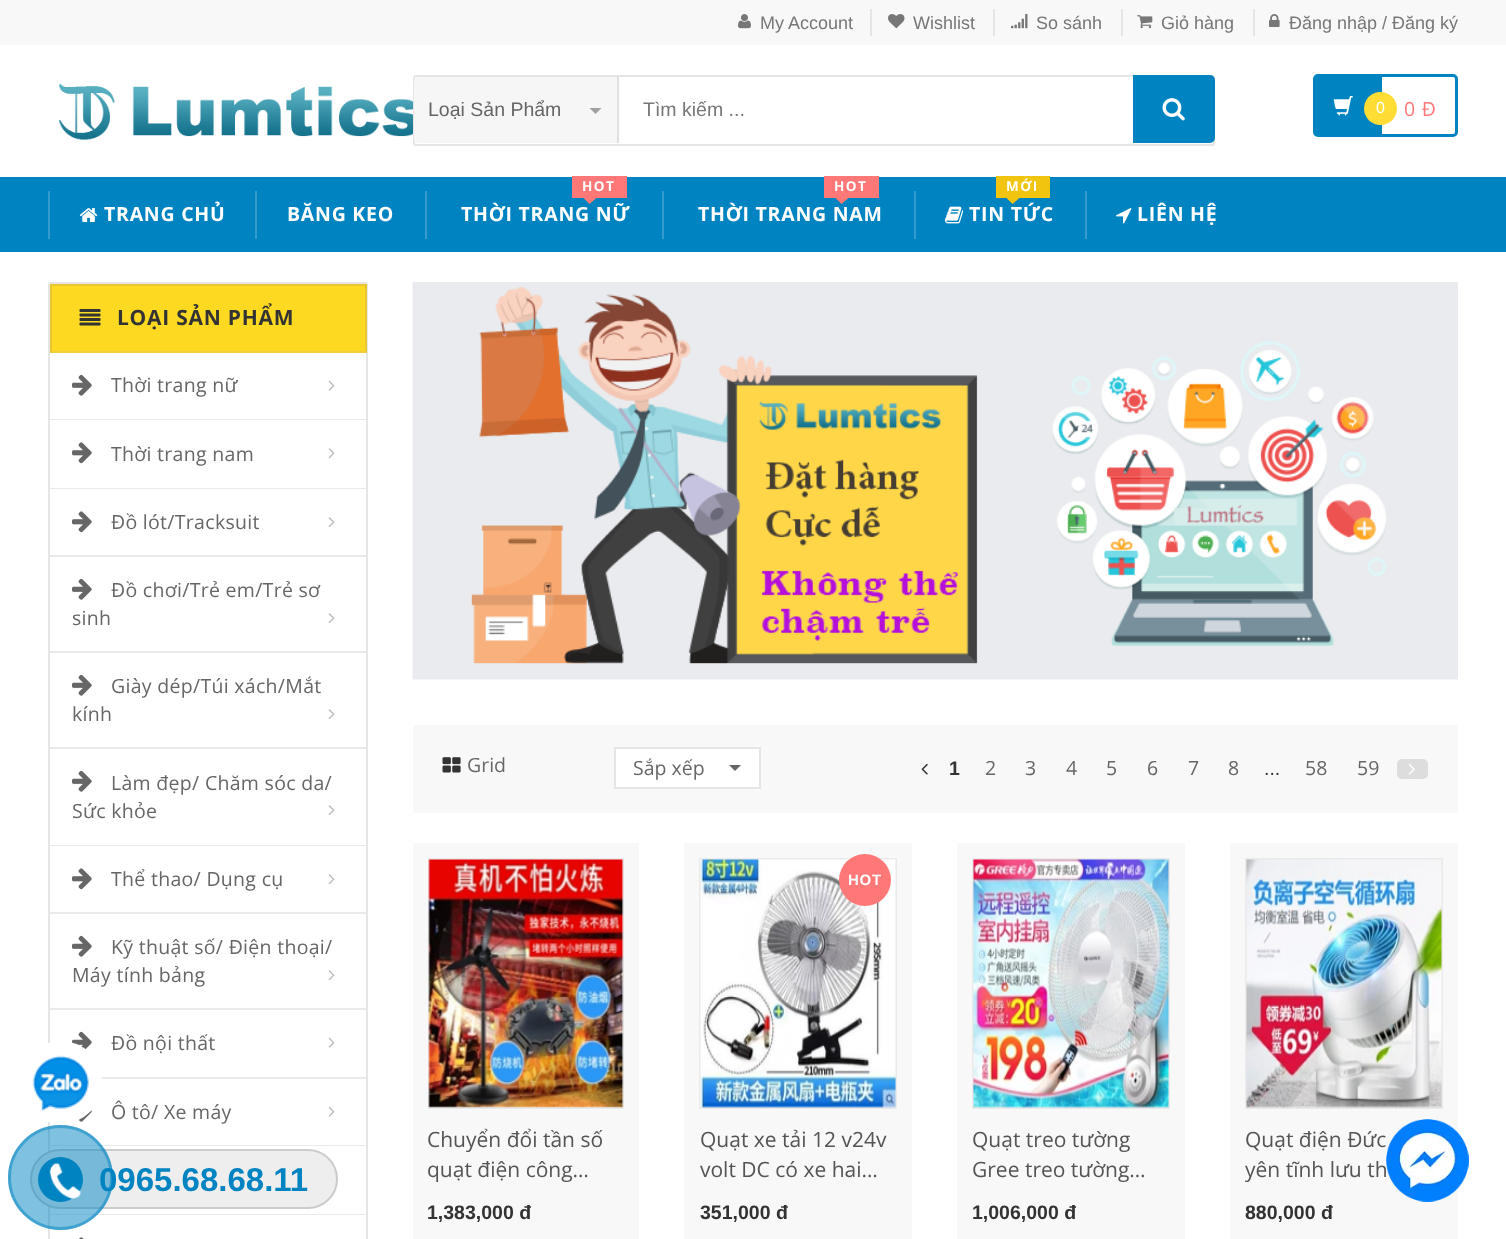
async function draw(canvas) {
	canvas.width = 1506;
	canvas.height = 1239;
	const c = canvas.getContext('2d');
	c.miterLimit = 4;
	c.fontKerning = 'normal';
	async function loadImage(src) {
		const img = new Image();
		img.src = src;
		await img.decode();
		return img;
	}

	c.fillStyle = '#fff';
	c.fillRect(0, 0, 1506, 1239);
	c.fillStyle = '#f8f8f8';
	c.fillRect(0, 0, 1506, 45);
	c.fillStyle = '#e5e5e5';
	c.fillRect(870, 9, 2, 27);
	c.drawImage(await loadImage('img1.png'), 738, 14, 13, 15);
	c.font = '18px Liberation Sans';
	c.fillStyle = '#777';
	c.fillText('My Account', 760, 29);
	c.fillStyle = '#e5e5e5';
	c.fillRect(993, 9, 2, 27);
	c.drawImage(await loadImage('img2.png'), 888, 14, 17, 15);
	c.fillStyle = '#777';
	c.fillText('Wishlist', 913, 29);
	c.fillStyle = '#e5e5e5';
	c.fillRect(1121, 9, 2, 27);
	c.drawImage(await loadImage('img3.png'), 1011, 14, 17, 15);
	c.fillStyle = '#777';
	c.fillText('So sánh', 1036, 29);
	c.fillStyle = '#e5e5e5';
	c.fillRect(1253, 9, 2, 27);
	c.drawImage(await loadImage('img4.png'), 1137, 15, 16, 14);
	c.fillStyle = '#777';
	c.fillText('Giỏ hàng', 1161, 29);
	c.drawImage(await loadImage('img5.png'), 1269, 14, 11, 13);
	c.fillText('Đăng nhập / Đăng ký', 1289, 29);
	c.drawImage(await loadImage('img6.png'), 59, 83, 354, 57);
	c.beginPath();
	c.roundRect(414, 76, 800, 69, 2);
	c.strokeStyle = '#e5e5e5';
	c.lineWidth = 2;
	c.stroke();
	c.fillStyle = '#f6f6f6';
	c.beginPath();
	c.roundRect(414, 77, 204, 66, [5, 0, 0, 5]);
	c.fill();
	c.fillStyle = '#e0e0e0';
	c.fillRect(617, 77, 2, 66);
	c.font = '19.5px Liberation Sans';
	c.fillStyle = '#666';
	c.fillText('Loại Sản Phẩm', 428, 116);
	c.fillStyle = '#a0a0a0';
	c.beginPath();
	c.moveTo(589.5, 108);
	c.lineTo(601.5, 108);
	c.lineTo(595.5, 114);
	c.closePath();
	c.fill();
	c.fillStyle = '#777';
	c.fillText('Tìm kiếm ...', 643, 116);
	c.fillStyle = '#0083c1';
	c.beginPath();
	c.roundRect(1134, 76, 80, 66, [0, 4, 4, 0]);
	c.fill();
	c.strokeStyle = '#0083c1';
	c.stroke();
	c.drawImage(await loadImage('img7.png'), 1162, 98, 23, 23);
	c.beginPath();
	c.roundRect(1314.5, 75.5, 142, 60, 3.5);
	c.lineWidth = 3;
	c.stroke();
	c.fillRect(1316, 77, 66, 57);
	c.drawImage(await loadImage('img8.png'), 1333, 96, 20, 20);
	c.fillStyle = '#ffdd35';
	c.beginPath();
	c.arc(1380.5, 108.5, 16.5, 0, 2 * Math.PI);
	c.fill();
	c.font = '16px Liberation Sans';
	c.fillStyle = '#fff';
	c.fillText('0', 1376, 113);
	c.letterSpacing = '0.75px';
	c.font = '19.5px Open Sans';
	c.fillStyle = '#ff7878';
	c.fillText('0 Đ', 1404, 116);
	c.fillStyle = '#0083c1';
	c.fillRect(0, 177, 1506, 75);
	c.fillStyle = '#339ccd';
	c.fillRect(48, 191, 2, 48);
	c.drawImage(await loadImage('img9.png'), 79, 208, 19, 14);
	c.font = 'bold 19.5px Open Sans';
	c.fillStyle = '#fff';
	c.fillText('TRANG CHỦ', 104, 221);
	c.fillStyle = '#339ccd';
	c.fillRect(255, 191, 2, 48);
	c.fillStyle = '#fff';
	c.fillText('BĂNG KEO', 287, 221);
	c.fillStyle = '#339ccd';
	c.fillRect(425, 191, 2, 48);
	c.fillStyle = '#ff7878';
	c.fillRect(572, 176, 55, 22);
	c.letterSpacing = '1.5px';
	c.font = 'bold 13.5px Open Sans';
	c.fillStyle = '#fff';
	c.fillText('HOT', 582, 191);
	c.letterSpacing = '0.75px';
	c.font = 'bold 19.5px Open Sans';
	c.fillText('THỜI TRANG NỮ', 461, 221);
	c.fillStyle = '#ff7878';
	c.beginPath();
	c.moveTo(580.5, 195);
	c.lineTo(600, 195);
	c.lineTo(589.5, 204);
	c.closePath();
	c.fill();
	c.fillStyle = '#339ccd';
	c.fillRect(662, 191, 2, 48);
	c.fillStyle = '#ff7878';
	c.fillRect(824, 176, 55, 22);
	c.letterSpacing = '1.5px';
	c.font = 'bold 13.5px Open Sans';
	c.fillStyle = '#fff';
	c.fillText('HOT', 834, 191);
	c.letterSpacing = '0.75px';
	c.font = 'bold 19.5px Open Sans';
	c.fillText('THỜI TRANG NAM', 698, 221);
	c.fillStyle = '#ff7878';
	c.beginPath();
	c.moveTo(832.5, 195);
	c.lineTo(852, 195);
	c.lineTo(841.5, 204);
	c.closePath();
	c.fill();
	c.fillStyle = '#339ccd';
	c.fillRect(914, 191, 2, 48);
	c.fillStyle = '#f1c40f';
	c.fillRect(996, 176, 54, 22);
	c.letterSpacing = '1.5px';
	c.font = 'bold 13.5px Open Sans';
	c.fillStyle = '#fff';
	c.fillText('MỚI', 1006, 191);
	c.letterSpacing = '0.75px';
	c.font = 'bold 19.5px Open Sans';
	c.fillText('TIN TỨC', 969, 221);
	c.fillStyle = '#f1c40f';
	c.beginPath();
	c.moveTo(1003.5, 195);
	c.lineTo(1023, 195);
	c.lineTo(1012.5, 204);
	c.closePath();
	c.fill();
	c.drawImage(await loadImage('img10.png'), 945, 206, 19, 18);
	c.fillStyle = '#339ccd';
	c.fillRect(1085, 191, 2, 48);
	c.drawImage(await loadImage('img11.png'), 1116, 208, 16, 16);
	c.fillStyle = '#fff';
	c.fillText('LIÊN HỆ', 1137, 221);
	c.beginPath();
	c.roundRect(49, 283, 318, 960, 2);
	c.strokeStyle = '#e5e5e5';
	c.lineWidth = 2;
	c.stroke();
	c.fillStyle = '#eaeaea';
	c.fillRect(101, 1077, 265, 2);
	c.drawImage(await loadImage('img18.png'), 72, 1031, 20, 19);
	c.drawImage(await loadImage('img19.png'), 78, 1110, 14, 12);
	c.fillStyle = '#fff';
	c.beginPath();
	c.roundRect(20, 1041, 82, 83, 41);
	c.fill();
	c.drawImage(await loadImage('img12.png'), 32, 1055, 57, 56);
	for (const [x, y, w, h, color] of [
		[52, 286, 313, 65, '#fdd922'],
		[50, 284, 316, 2, '#e9c532'],
		[365, 284, 2, 69, '#e9c532'],
		[50, 351, 316, 2, '#f1ce3c'],
		[50, 284, 2, 69, '#e9c532'],
	]) {
		c.fillStyle = color;
		c.fillRect(x, y, w, h);
	}
	c.drawImage(await loadImage('img13.png'), 79, 309, 22, 17);
	c.font = 'bold 21px Open Sans';
	c.fillStyle = '#333';
	c.fillText('LOẠI SẢN PHẨM', 117, 325);
	c.fillStyle = '#eaeaea';
	c.fillRect(50, 419, 316, 1);
	c.drawImage(await loadImage('img14.png'), 72, 374, 20, 22);
	c.letterSpacing = '0.3px';
	c.font = '19.5px Open Sans';
	c.fillStyle = '#666';
	c.fillText('Thời trang nữ', 111, 392);
	c.drawImage(await loadImage('img15.png'), 328, 380, 7, 11);
	c.fillStyle = '#eaeaea';
	c.fillRect(50, 488, 316, 1);
	c.drawImage(await loadImage('img16.png'), 72, 442, 20, 22);
	c.fillStyle = '#666';
	c.fillText('Thời trang nam', 111, 461);
	c.drawImage(await loadImage('img17.png'), 328, 448, 7, 11);
	c.fillStyle = '#eaeaea';
	c.fillRect(50, 555, 316, 2);
	c.drawImage(await loadImage('img16.png'), 72, 511, 20, 22);
	c.fillStyle = '#666';
	c.fillText('Đồ lót/Tracksuit', 111, 529);
	c.drawImage(await loadImage('img17.png'), 328, 517, 7, 11);
	c.fillStyle = '#eaeaea';
	c.fillRect(50, 651, 316, 2);
	c.drawImage(await loadImage('img14.png'), 72, 578, 20, 22);
	c.fillStyle = '#666';
	c.fillText('Đồ chơi/Trẻ em/Trẻ sơ', 111, 597);
	c.fillText('sinh', 72, 625);
	c.drawImage(await loadImage('img17.png'), 328, 613, 7, 11);
	c.fillStyle = '#eaeaea';
	c.fillRect(50, 747, 316, 2);
	c.drawImage(await loadImage('img14.png'), 72, 674, 20, 22);
	c.fillStyle = '#666';
	c.fillText('Giày dép/Túi xách/Mắt', 111, 693);
	c.fillText('kính', 72, 721);
	c.drawImage(await loadImage('img17.png'), 328, 709, 7, 11);
	c.fillStyle = '#eaeaea';
	c.fillRect(50, 845, 316, 1);
	c.drawImage(await loadImage('img14.png'), 72, 770, 20, 22);
	c.fillStyle = '#666';
	c.fillText('Làm đẹp/ Chăm sóc da/', 111, 790);
	c.fillText('Sức khỏe', 72, 818);
	c.drawImage(await loadImage('img17.png'), 328, 805, 7, 11);
	c.fillStyle = '#eaeaea';
	c.fillRect(50, 912, 316, 2);
	c.drawImage(await loadImage('img16.png'), 72, 868, 20, 22);
	c.fillStyle = '#666';
	c.fillText('Thể thao/ Dụng cụ', 111, 886);
	c.drawImage(await loadImage('img17.png'), 328, 874, 7, 11);
	c.fillStyle = '#eaeaea';
	c.fillRect(50, 1008, 316, 2);
	c.drawImage(await loadImage('img14.png'), 72, 935, 20, 22);
	c.fillStyle = '#666';
	c.fillText('Kỹ thuật số/ Điện thoại/', 111, 954);
	c.fillText('Máy tính bảng', 72, 982);
	c.drawImage(await loadImage('img17.png'), 328, 970, 7, 11);
	c.fillText('Đồ nội thất', 111, 1050);
	c.drawImage(await loadImage('img15.png'), 328, 1037, 7, 11);
	c.fillStyle = '#eaeaea';
	c.fillRect(50, 1145, 316, 1);
	c.fillStyle = '#666';
	c.fillText('Ô tô/ Xe máy', 111, 1119);
	c.drawImage(await loadImage('img15.png'), 328, 1106, 7, 11);
	c.fillStyle = '#eaeaea';
	c.fillRect(50, 1214, 316, 1);
	c.drawImage(await loadImage('img20.png'), 79, 1237, 5, 2);
	c.drawImage(await loadImage('img21.png'), 412, 282, 1046, 398);
	c.fillStyle = '#f8f8f8';
	c.fillRect(413, 725, 1045, 88);
	c.drawImage(await loadImage('img22.png'), 442, 757, 19, 16);
	c.letterSpacing = '0px';
	c.fillStyle = '#666';
	c.fillText('Grid', 467, 772);
	c.fillStyle = '#fff';
	c.beginPath();
	c.rect(615, 748, 145, 40);
	c.fill();
	c.stroke();
	c.fillStyle = '#666';
	c.fillText('Sắp xếp', 633, 775);
	c.beginPath();
	c.moveTo(729, 765);
	c.lineTo(741, 765);
	c.lineTo(735, 771);
	c.closePath();
	c.fill();
	c.drawImage(await loadImage('img23.png'), 921, 763, 7, 12);
	c.font = 'bold 19.5px Liberation Sans';
	c.fillStyle = '#333';
	c.fillText('1', 949, 775);
	c.font = '19.5px Open Sans';
	c.fillStyle = '#666';
	for (const [text, x, y] of [
		['2', 985, 775],
		['3', 1025, 775],
		['4', 1066, 775],
		['5', 1106, 775],
		['6', 1147, 775],
		['7', 1188, 775],
		['8', 1228, 775],
	]) {
		c.fillText(text, x, y);
	}
	c.font = '19.5px Liberation Sans';
	c.fillStyle = '#333';
	c.fillText('...', 1264, 775);
	c.font = '19.5px Open Sans';
	c.fillStyle = '#666';
	c.fillText('58', 1305, 775);
	c.fillText('59', 1357, 775);
	c.fillStyle = '#ddd';
	c.beginPath();
	c.roundRect(1397, 759, 31, 20, 5);
	c.fill();
	c.drawImage(await loadImage('img24.png'), 1408, 764, 7, 11);
	c.fillStyle = '#f8f8f8';
	c.fillRect(413, 843, 226, 396);
	c.strokeStyle = '#eaeaea';
	c.strokeRect(429, 859, 194, 249);
	c.drawImage(await loadImage('img25.png'), 428, 859, 196, 249);
	c.font = '21px Open Sans';
	c.fillStyle = '#555';
	c.fillText('Chuyển đổi tần số', 427, 1147);
	c.fillText('quạt điện công…', 427, 1177);
	c.font = 'bold 19.5px Liberation Sans';
	c.fillStyle = '#333';
	c.fillText('1,383,000 đ', 427, 1219);
	c.fillStyle = '#f8f8f8';
	c.fillRect(684, 843, 228, 396);
	c.strokeRect(700, 859, 196, 249);
	c.drawImage(await loadImage('img26.png'), 700, 859, 196, 249);
	c.fillStyle = '#ff7878';
	c.beginPath();
	c.arc(865, 880, 26, 0, 2 * Math.PI);
	c.fill();
	c.letterSpacing = '0.75px';
	c.font = 'bold 15px Liberation Sans';
	c.fillStyle = '#fff';
	c.fillText('HOT', 848, 885);
	c.letterSpacing = '0px';
	c.font = '21px Open Sans';
	c.fillStyle = '#555';
	c.fillText('Quạt xe tải 12 v24v', 700, 1147);
	c.fillText('volt DC có xe hai…', 700, 1177);
	c.font = 'bold 19.5px Liberation Sans';
	c.fillStyle = '#333';
	c.fillText('351,000 đ', 700, 1219);
	c.fillStyle = '#f8f8f8';
	c.fillRect(957, 843, 228, 396);
	c.strokeRect(973, 859, 196, 249);
	c.drawImage(await loadImage('img27.png'), 973, 859, 196, 249);
	c.font = '21px Open Sans';
	c.fillStyle = '#555';
	c.fillText('Quạt treo tường', 972, 1147);
	c.fillText('Gree treo tường…', 972, 1177);
	c.font = 'bold 19.5px Liberation Sans';
	c.fillStyle = '#333';
	c.fillText('1,006,000 đ', 972, 1219);
	c.fillStyle = '#f8f8f8';
	c.fillRect(1230, 843, 228, 396);
	c.strokeRect(1246, 859, 196, 249);
	c.drawImage(await loadImage('img28.png'), 1246, 859, 196, 249);
	c.font = '21px Open Sans';
	c.fillStyle = '#555';
	c.fillText('Quạt điện Đức', 1245, 1147);
	c.fillText('yên tĩnh lưu th', 1245, 1177);
	c.font = 'bold 19.5px Liberation Sans';
	c.fillStyle = '#333';
	c.fillText('880,000 đ', 1245, 1219);
	c.fillStyle = '#eee';
	c.beginPath();
	c.roundRect(31, 1150, 306, 58, 29);
	c.fill();
	c.strokeStyle = '#ccc';
	c.stroke();
	c.font = 'bold 33px Liberation Sans';
	c.fillStyle = '#0083c1';
	c.fillText('0965.68.68.11', 99, 1191);
	c.fillStyle = '#0083c180';
	c.beginPath();
	c.arc(60.5, 1177.5, 52.5, 0, 2 * Math.PI);
	c.fill();
	c.beginPath();
	c.arc(60.5, 1177.5, 51, 0, 2 * Math.PI);
	c.strokeStyle = '#0083c180';
	c.lineWidth = 3;
	c.stroke();
	c.fillStyle = '#0083c1';
	c.beginPath();
	c.arc(60.5, 1179.5, 22.5, 0, 2 * Math.PI);
	c.fill();
	c.drawImage(await loadImage('img29.png'), 49, 1162, 32, 37);
	c.fillStyle = '#fff';
	c.beginPath();
	c.arc(1427.5, 1160.5, 41.5, 0, 2 * Math.PI);
	c.fill();
	c.drawImage(await loadImage('img30.png'), 1386, 1119, 83, 83);
}

draw(document.querySelector('canvas'));
